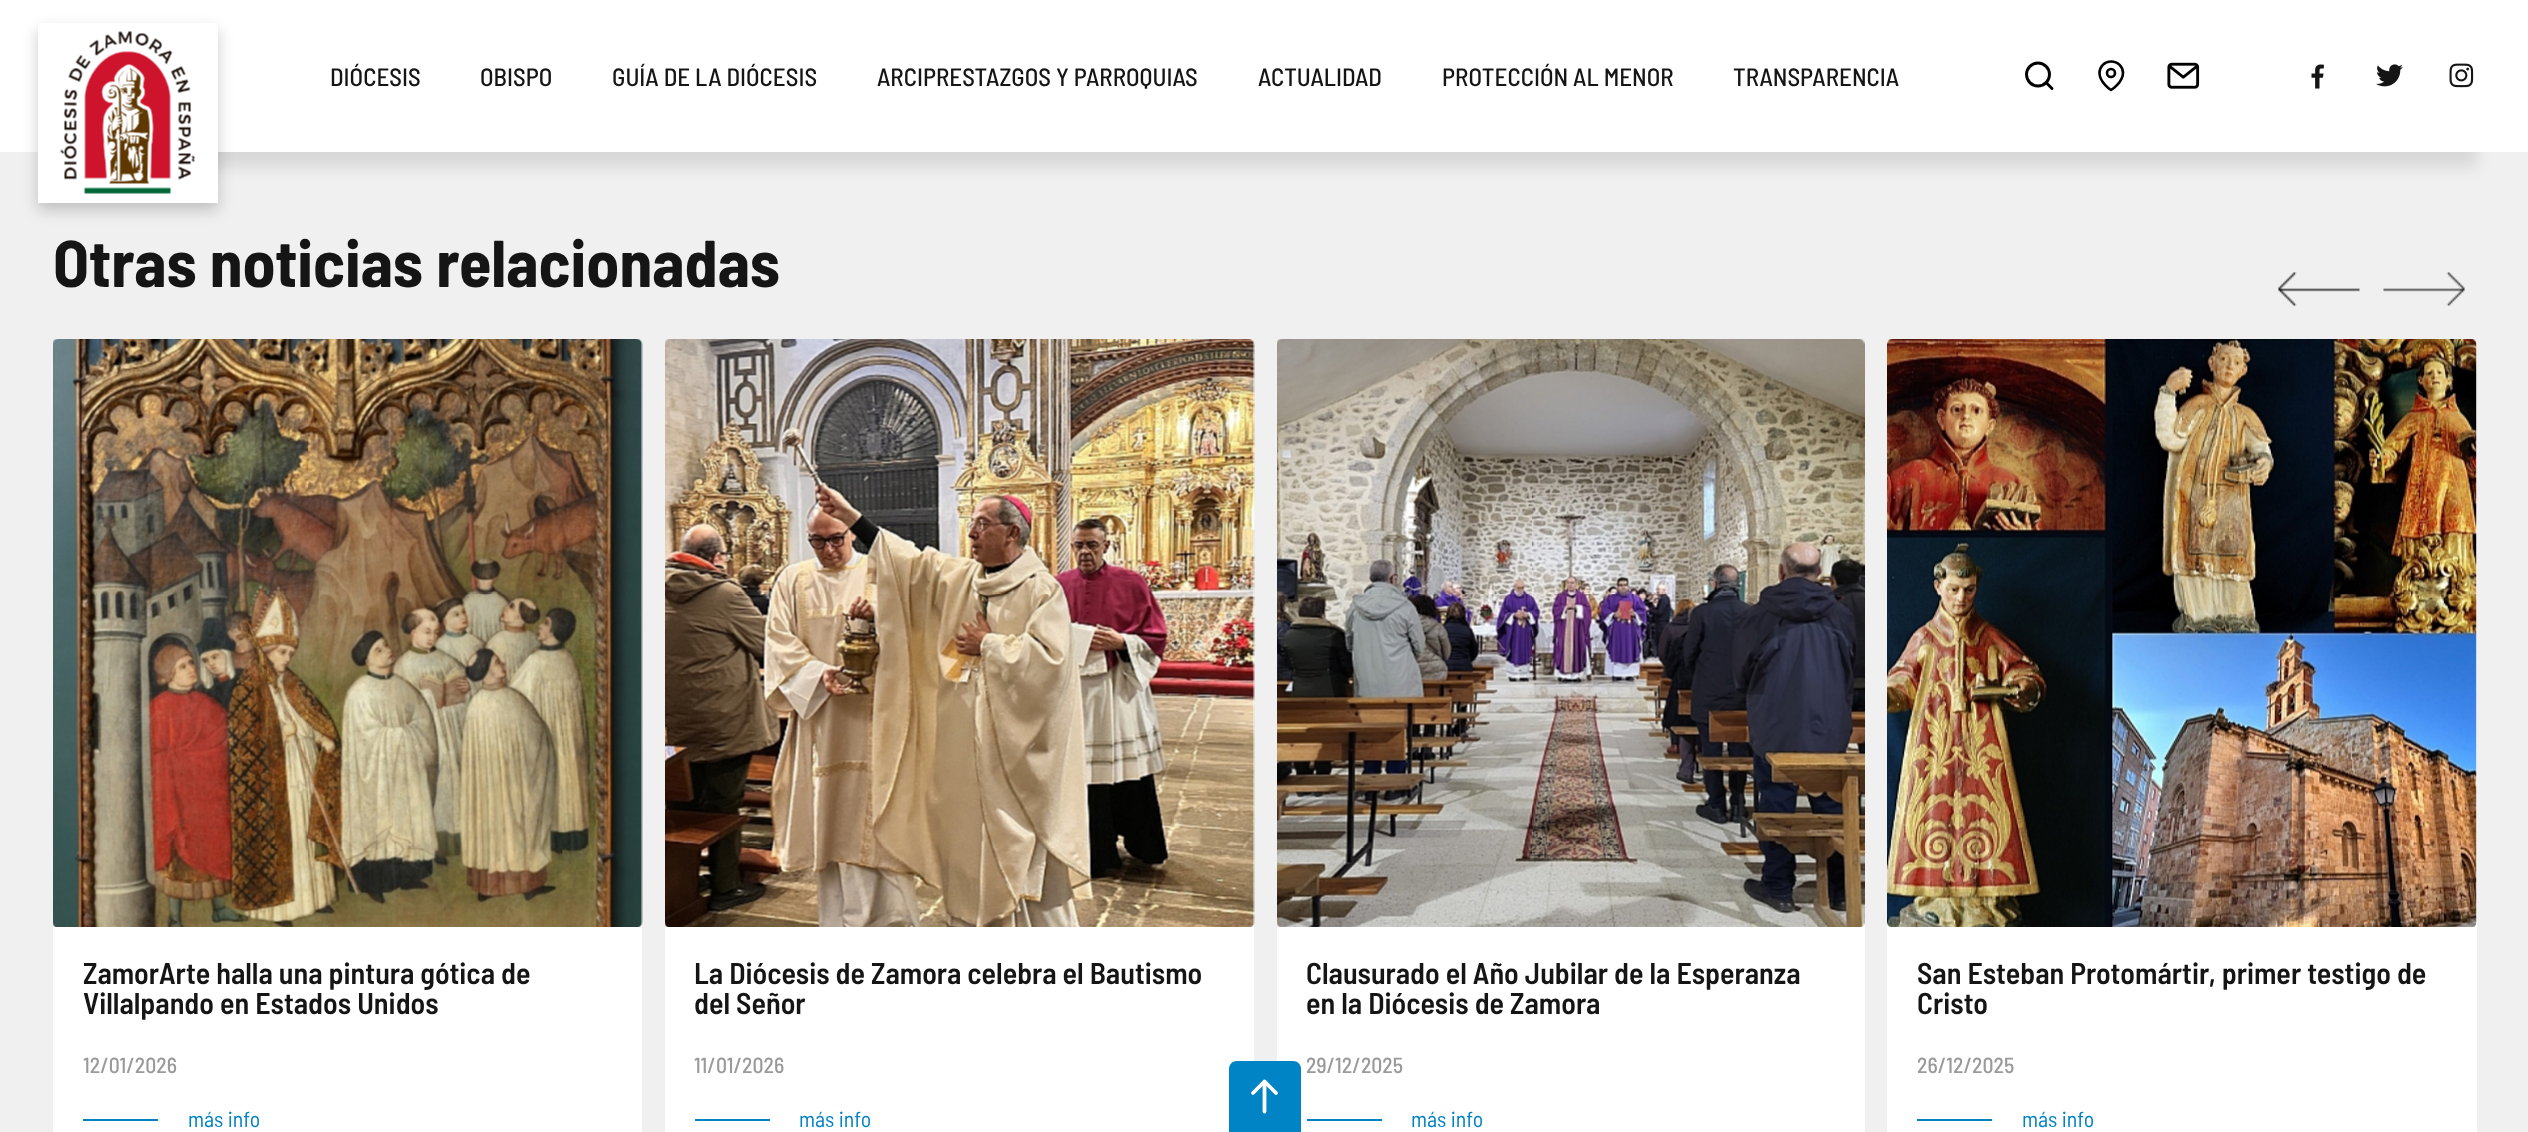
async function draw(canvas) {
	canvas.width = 2528;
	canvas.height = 1132;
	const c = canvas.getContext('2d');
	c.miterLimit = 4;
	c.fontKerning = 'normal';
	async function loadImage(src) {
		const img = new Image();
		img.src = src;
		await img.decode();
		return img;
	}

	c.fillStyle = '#f0f0f0';
	c.fillRect(0, 0, 2528, 1132);
	c.fillStyle = '#fff';
	c.fillRect(0, 0, 2528, 77);
	c.fillStyle = '#0000001a';
	c.filter = 'blur(7.5px)';
	c.beginPath();
	c.rect(53, 92, 2424, 75);
	c.fill();
	c.filter = 'none';
	c.fillStyle = '#fff';
	c.fillRect(0, 77, 2528, 75);
	c.fillStyle = '#00000033';
	c.filter = 'blur(7.5px)';
	c.beginPath();
	c.rect(38, 30, 180, 180);
	c.fill();
	c.filter = 'none';
	c.fillStyle = '#fff';
	c.fillRect(38, 23, 180, 180);
	c.drawImage(await loadImage('img1.png'), 60, 31, 135, 163);
	c.font = '500 25px Barlow Semi Condensed';
	c.fillStyle = '#151515';
	for (const [text, x, y] of [
		['DIÓCESIS', 330, 86],
		['OBISPO', 480, 86],
		['GUÍA DE LA DIÓCESIS', 612, 86],
		['ARCIPRESTAZGOS Y PARROQUIAS', 877, 86],
		['ACTUALIDAD', 1258, 86],
		['PROTECCIÓN AL MENOR', 1442, 86],
		['TRANSPARENCIA', 1733, 86],
	]) {
		c.fillText(text, x, y);
	}
	c.beginPath();
	c.arc(2038, 74.5, 11.5, 0, 2 * Math.PI);
	c.strokeStyle = '#000';
	c.lineWidth = 2.9;
	c.stroke();
	c.beginPath();
	c.moveTo(2052, 88.5);
	c.lineTo(2046, 82.5);
	c.lineCap = 'round';
	c.lineJoin = 'round';
	c.stroke();
	c.beginPath();
	c.moveTo(2123, 73);
	c.bezierCurveTo(2123, 82.5, 2111, 90, 2111, 90);
	c.bezierCurveTo(2111, 90, 2099.5, 82.5, 2099.5, 73);
	c.bezierCurveTo(2099.5, 66.5, 2104.5, 61.5, 2111, 61.5);
	c.bezierCurveTo(2118, 61.5, 2123, 66.5, 2123, 73);
	c.closePath();
	c.lineWidth = 2.6;
	c.stroke();
	c.beginPath();
	c.arc(2111, 73, 4, 0, 2 * Math.PI);
	c.stroke();
	c.drawImage(await loadImage('img2.png'), 2167, 62, 33, 27);
	c.drawImage(await loadImage('img3.png'), 2311, 64, 13, 25);
	c.drawImage(await loadImage('img4.png'), 2376, 64, 27, 23);
	c.drawImage(await loadImage('img5.png'), 2449, 63, 25, 25);
	c.font = 'bold 66px Barlow Semi Condensed';
	c.fillText('Otras noticias relacionadas', 53, 287);
	c.drawImage(await loadImage('img6.png'), 2278, 272, 82, 34);
	c.drawImage(await loadImage('img7.png'), 2383, 272, 82, 34);
	c.fillStyle = '#fff';
	c.beginPath();
	c.roundRect(53, 339, 589, 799, 6);
	c.fill();
	c.drawImage(await loadImage('img8.png'), 53, 339, 590, 588);
	c.font = '600 30px Barlow Semi Condensed';
	c.fillStyle = '#151515';
	c.fillText('ZamorArte halla una pintura gótica de', 83, 984);
	c.fillText('Villalpando en Estados Unidos', 83, 1014);
	c.font = '500 21.75px Barlow Semi Condensed';
	c.fillStyle = '#9a9a9a';
	c.fillText('12/01/2026', 83, 1073);
	c.fillStyle = '#0082c3';
	c.fillRect(83, 1119, 75, 2);
	c.font = '21.75px Barlow Semi Condensed';
	c.fillText('más info', 188, 1127);
	c.fillStyle = '#fff';
	c.beginPath();
	c.roundRect(665, 339, 589, 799, 6);
	c.fill();
	c.drawImage(await loadImage('img9.png'), 665, 339, 590, 588);
	c.font = '600 30px Barlow Semi Condensed';
	c.fillStyle = '#151515';
	c.fillText('La Diócesis de Zamora celebra el Bautismo', 694, 984);
	c.fillText('del Señor', 694, 1014);
	c.font = '500 21.75px Barlow Semi Condensed';
	c.fillStyle = '#9a9a9a';
	c.fillText('11/01/2026', 694, 1073);
	c.fillStyle = '#0082c3';
	c.fillRect(695, 1119, 75, 2);
	c.font = '21.75px Barlow Semi Condensed';
	c.fillText('más info', 799, 1127);
	c.fillStyle = '#fff';
	c.beginPath();
	c.roundRect(1277, 339, 588, 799, 6);
	c.fill();
	c.drawImage(await loadImage('img10.png'), 1277, 339, 588, 588);
	c.font = '600 30px Barlow Semi Condensed';
	c.fillStyle = '#151515';
	c.fillText('Clausurado el Año Jubilar de la Esperanza', 1306, 984);
	c.fillText('en la Diócesis de Zamora', 1306, 1014);
	c.font = '500 21.75px Barlow Semi Condensed';
	c.fillStyle = '#9a9a9a';
	c.fillText('29/12/2025', 1306, 1073);
	c.fillStyle = '#0082c3';
	c.fillRect(1307, 1119, 75, 2);
	c.font = '21.75px Barlow Semi Condensed';
	c.fillText('más info', 1411, 1127);
	c.fillStyle = '#fff';
	c.beginPath();
	c.roundRect(1887, 339, 590, 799, 6);
	c.fill();
	c.drawImage(await loadImage('img11.png'), 1887, 339, 590, 588);
	c.font = '600 30px Barlow Semi Condensed';
	c.fillStyle = '#151515';
	c.fillText('San Esteban Protomártir, primer testigo de', 1917, 984);
	c.fillText('Cristo', 1917, 1014);
	c.font = '500 21.75px Barlow Semi Condensed';
	c.fillStyle = '#9a9a9a';
	c.fillText('26/12/2025', 1917, 1073);
	c.fillStyle = '#0082c3';
	c.fillRect(1917, 1119, 75, 2);
	c.font = '21.75px Barlow Semi Condensed';
	c.fillText('más info', 2022, 1127);
	c.fillStyle = '#0084c5';
	c.beginPath();
	c.moveTo(1237, 1061);
	c.lineTo(1293, 1061);
	c.bezierCurveTo(1297.5, 1061, 1301, 1064.5, 1301, 1069);
	c.lineTo(1301, 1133);
	c.lineTo(1229, 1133);
	c.lineTo(1229, 1069);
	c.bezierCurveTo(1229, 1064.5, 1232.5, 1061, 1237, 1061);
	c.closePath();
	c.fill();
	c.beginPath();
	c.moveTo(1264.5, 1111.5);
	c.lineTo(1264.5, 1081.5);
	c.moveTo(1253, 1093);
	c.lineTo(1264.5, 1081.5);
	c.lineTo(1276, 1093);
	c.strokeStyle = '#fff';
	c.lineWidth = 3.8;
	c.stroke();
}

draw(document.querySelector('canvas'));
